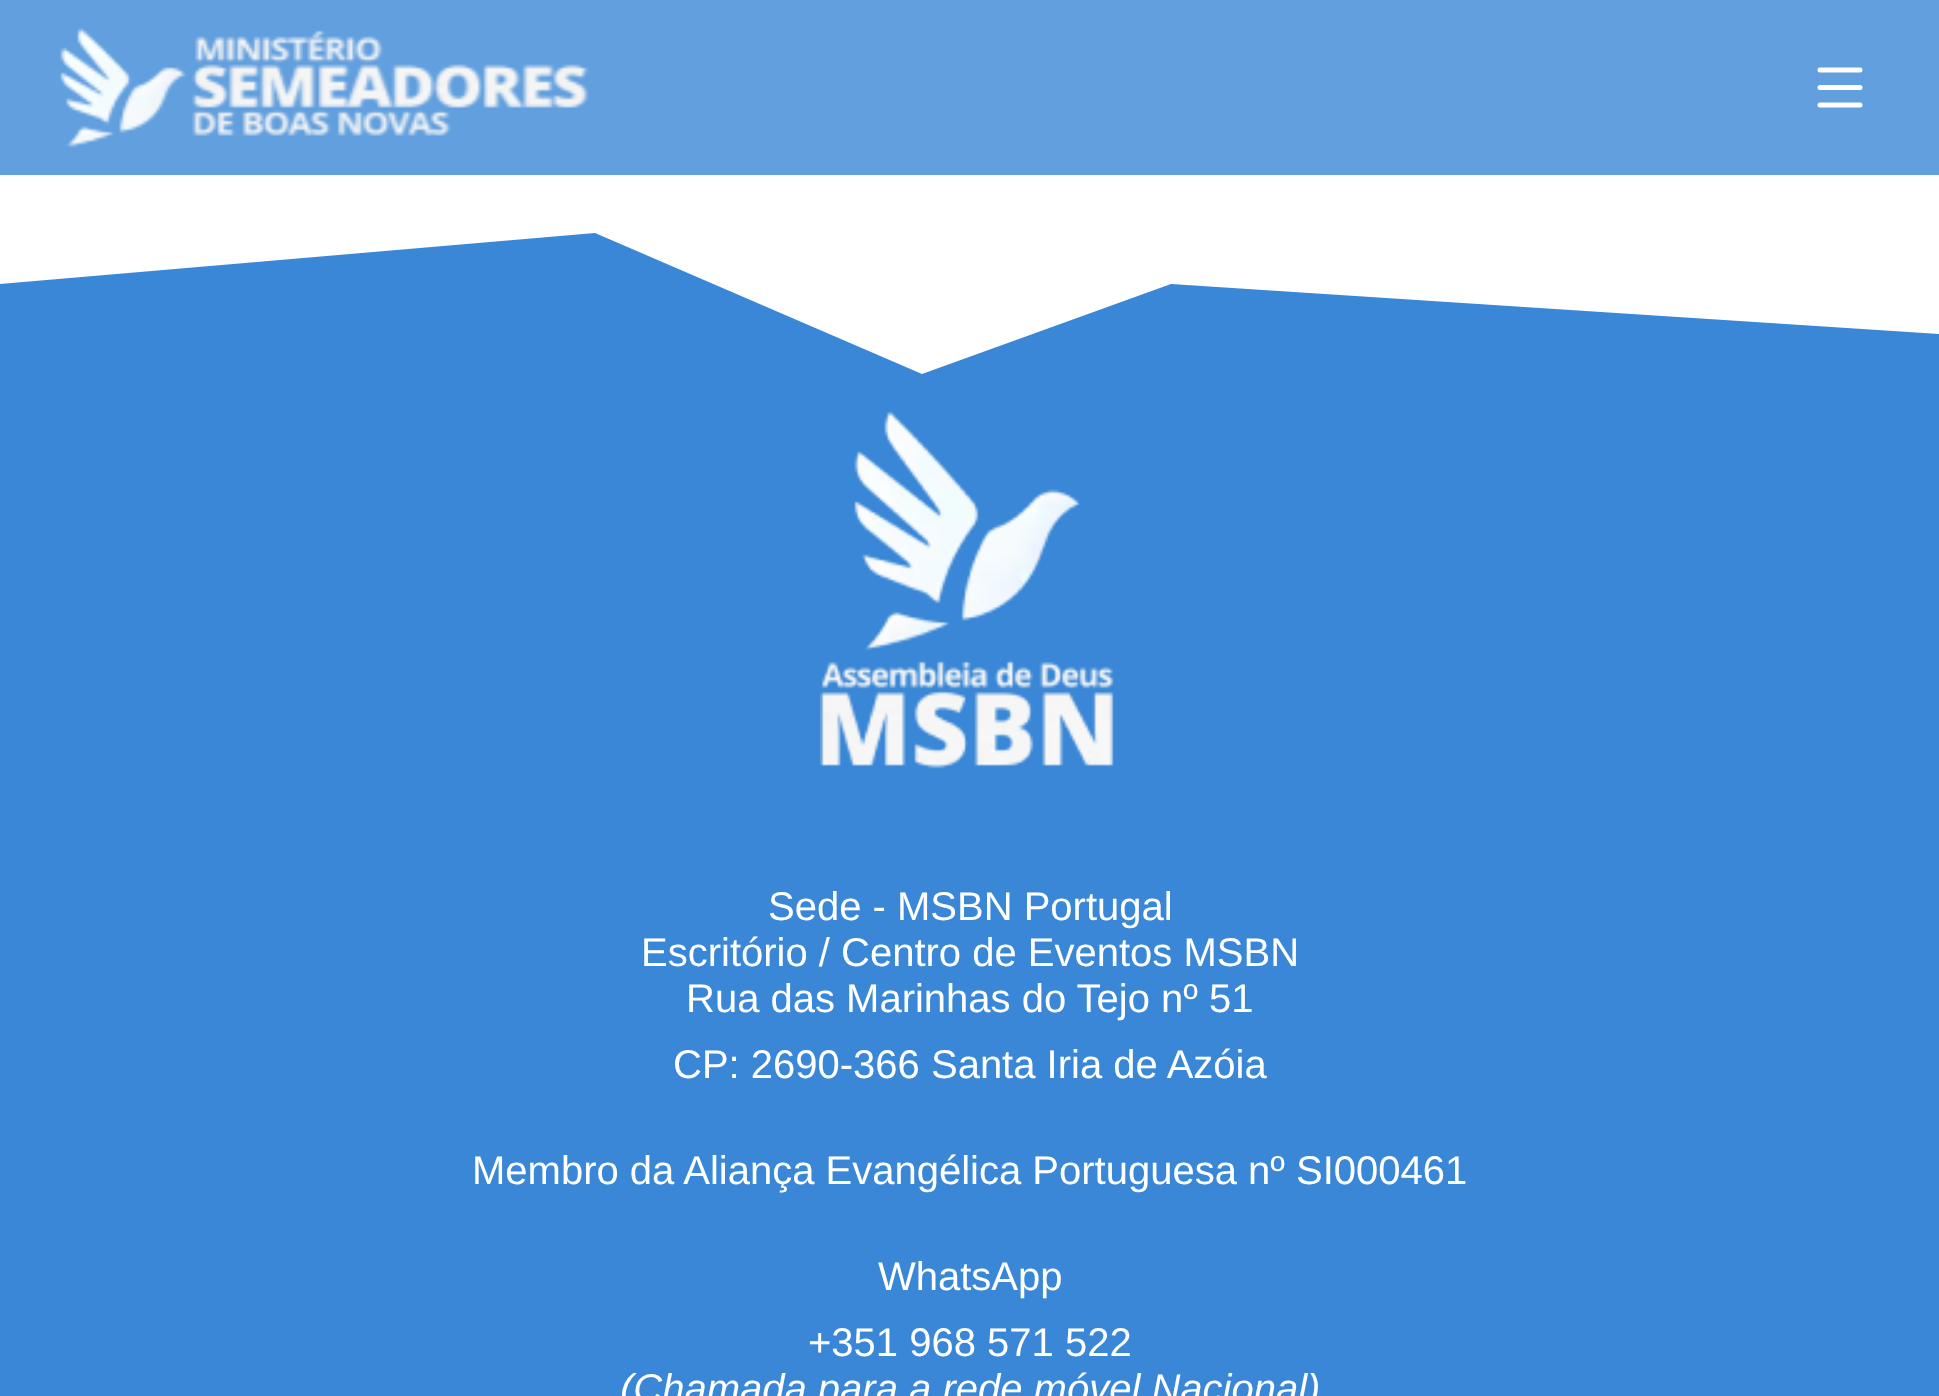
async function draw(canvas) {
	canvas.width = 1939;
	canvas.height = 1396;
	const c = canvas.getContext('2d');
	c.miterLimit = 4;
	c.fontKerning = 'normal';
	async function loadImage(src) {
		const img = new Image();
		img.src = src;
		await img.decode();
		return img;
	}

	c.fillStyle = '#3987d6';
	c.fillRect(0, 0, 1939, 1396);
	c.fillStyle = '#619fde';
	c.fillRect(0, 0, 1939, 175);
	c.drawImage(await loadImage('img1.png'), 60, 28, 529, 120);
	c.beginPath();
	c.moveTo(1820, 70);
	c.lineTo(1860, 70);
	c.moveTo(1820, 87.5);
	c.lineTo(1860, 87.5);
	c.moveTo(1820, 105);
	c.lineTo(1860, 105);
	c.strokeStyle = '#fff';
	c.lineWidth = 5;
	c.lineCap = 'round';
	c.lineJoin = 'round';
	c.stroke();
	c.fillStyle = '#fff';
	c.beginPath();
	c.moveTo(595, 233);
	c.lineTo(0, 284);
	c.lineTo(0, 175);
	c.lineTo(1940, 175);
	c.lineTo(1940, 334);
	c.lineTo(1171, 284);
	c.lineTo(922, 374);
	c.closePath();
	c.fill();
	c.drawImage(await loadImage('img2.png'), 820, 411, 294, 358);
	c.font = '40px Liberation Sans';
	for (const [text, x, y] of [
		['Sede - MSBN Portugal', 768, 920],
		['Escritório / Centro de Eventos MSBN', 641, 966],
		['Rua das Marinhas do Tejo nº 51', 686, 1012],
		['CP: 2690-366 Santa Iria de Azóia', 673, 1078],
		['Membro da Aliança Evangélica Portuguesa nº SI000461', 472, 1184],
		['WhatsApp', 878, 1290],
		['+351 968 571 522', 808, 1356],
	]) {
		c.fillText(text, x, y);
	}
	c.font = 'italic 40px Liberation Sans';
	c.fillText('(Chamada para a rede móvel Nacional)', 620, 1402);
}

draw(document.querySelector('canvas'));
